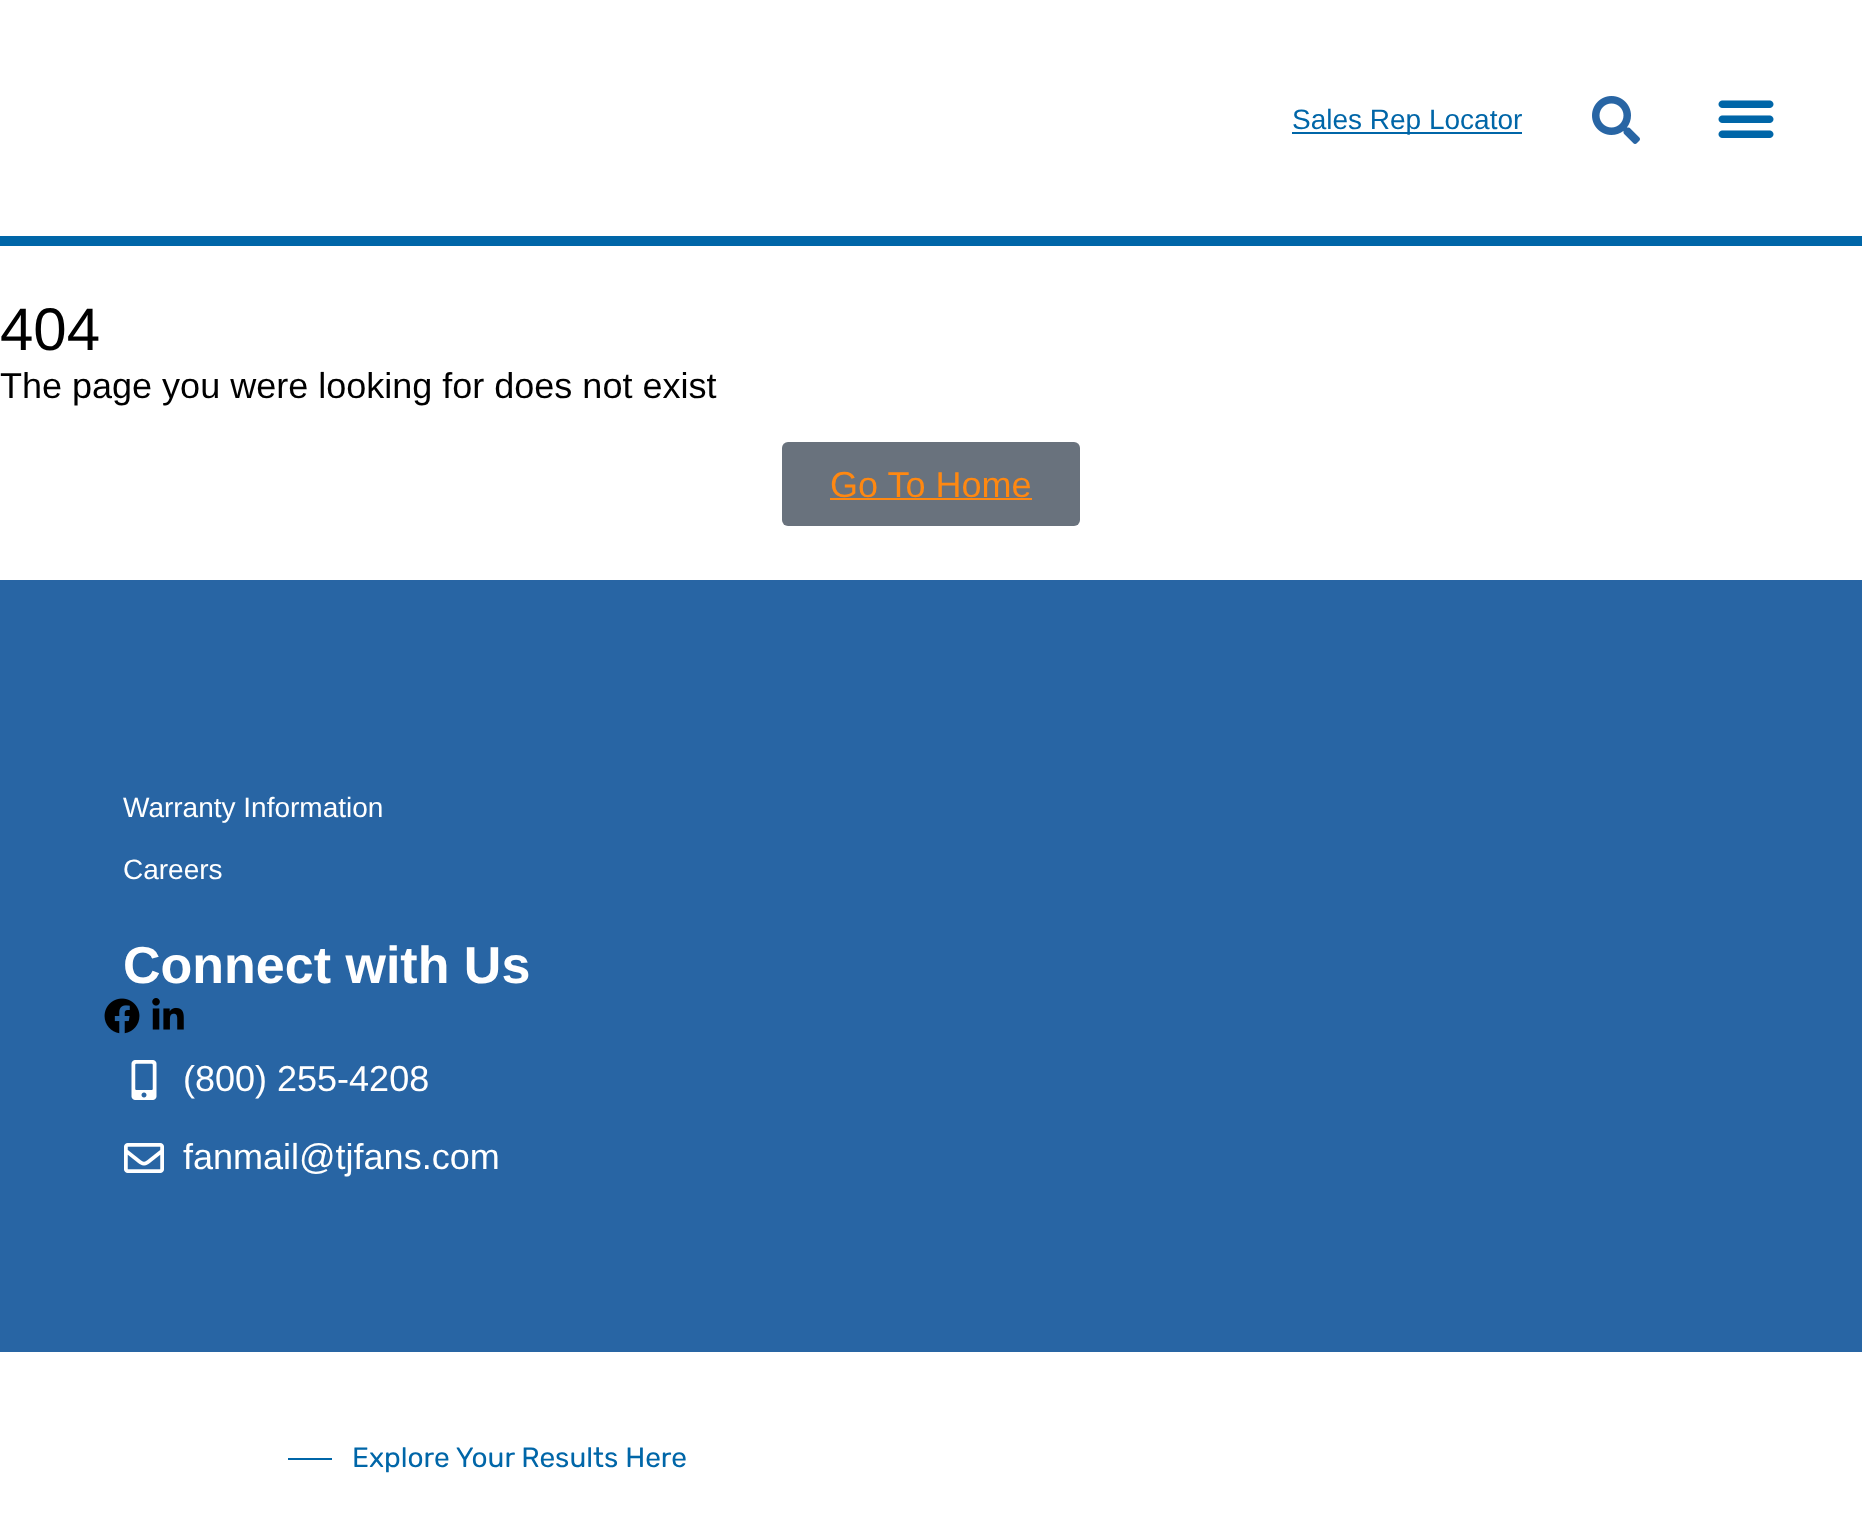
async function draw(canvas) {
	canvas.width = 1862;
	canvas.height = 1536;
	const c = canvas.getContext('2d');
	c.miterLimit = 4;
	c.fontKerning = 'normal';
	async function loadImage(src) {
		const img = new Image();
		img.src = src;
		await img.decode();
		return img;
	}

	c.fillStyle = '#fff';
	c.fillRect(0, 0, 1862, 1536);
	c.fillStyle = '#0066a8';
	c.fillRect(0, 236, 1862, 10);
	c.fillRect(1292, 132, 230, 2);
	c.font = '28px Liberation Sans';
	c.fillText('Sales Rep Locator', 1292, 129);
	c.drawImage(await loadImage('img1.png'), 1592, 96, 48, 48);
	c.drawImage(await loadImage('img2.png'), 1718, 100, 56, 38);
	c.font = '60px Liberation Sans';
	c.fillStyle = '#000';
	c.fillText('404', 0, 350);
	c.font = '36px Liberation Sans';
	c.fillText('The page you were looking for does not exist', 0, 398);
	c.fillStyle = '#69727d';
	c.beginPath();
	c.roundRect(782, 442, 298, 84, 6);
	c.fill();
	c.fillStyle = '#f81';
	c.fillText('Go To Home', 830, 497);
	c.fillRect(830, 498, 202, 2);
	c.fillStyle = '#2865a4';
	c.fillRect(0, 580, 1862, 772);
	c.font = '28px Liberation Sans';
	c.fillStyle = '#fff';
	c.fillText('Warranty Information', 123, 817);
	c.fillText('Careers', 123, 879);
	c.font = 'bold 52px Liberation Sans';
	c.fillText('Connect with Us', 123, 983);
	c.drawImage(await loadImage('img3.png'), 104, 998, 36, 36);
	c.drawImage(await loadImage('img4.png'), 152, 998, 32, 32);
	c.drawImage(await loadImage('img5.png'), 131, 1060, 26, 40);
	c.font = '36px Liberation Sans';
	c.fillText('(800) 255-4208', 183, 1091);
	c.drawImage(await loadImage('img6.png'), 124, 1143, 40, 30);
	c.fillText('fanmail@tjfans.com', 183, 1169);
	c.fillStyle = '#0066a8';
	c.fillRect(288, 1458, 44, 2);
	c.font = '28px Rubik';
	c.fillText('Explore Your Results Here', 352, 1467);
}

draw(document.querySelector('canvas'));
